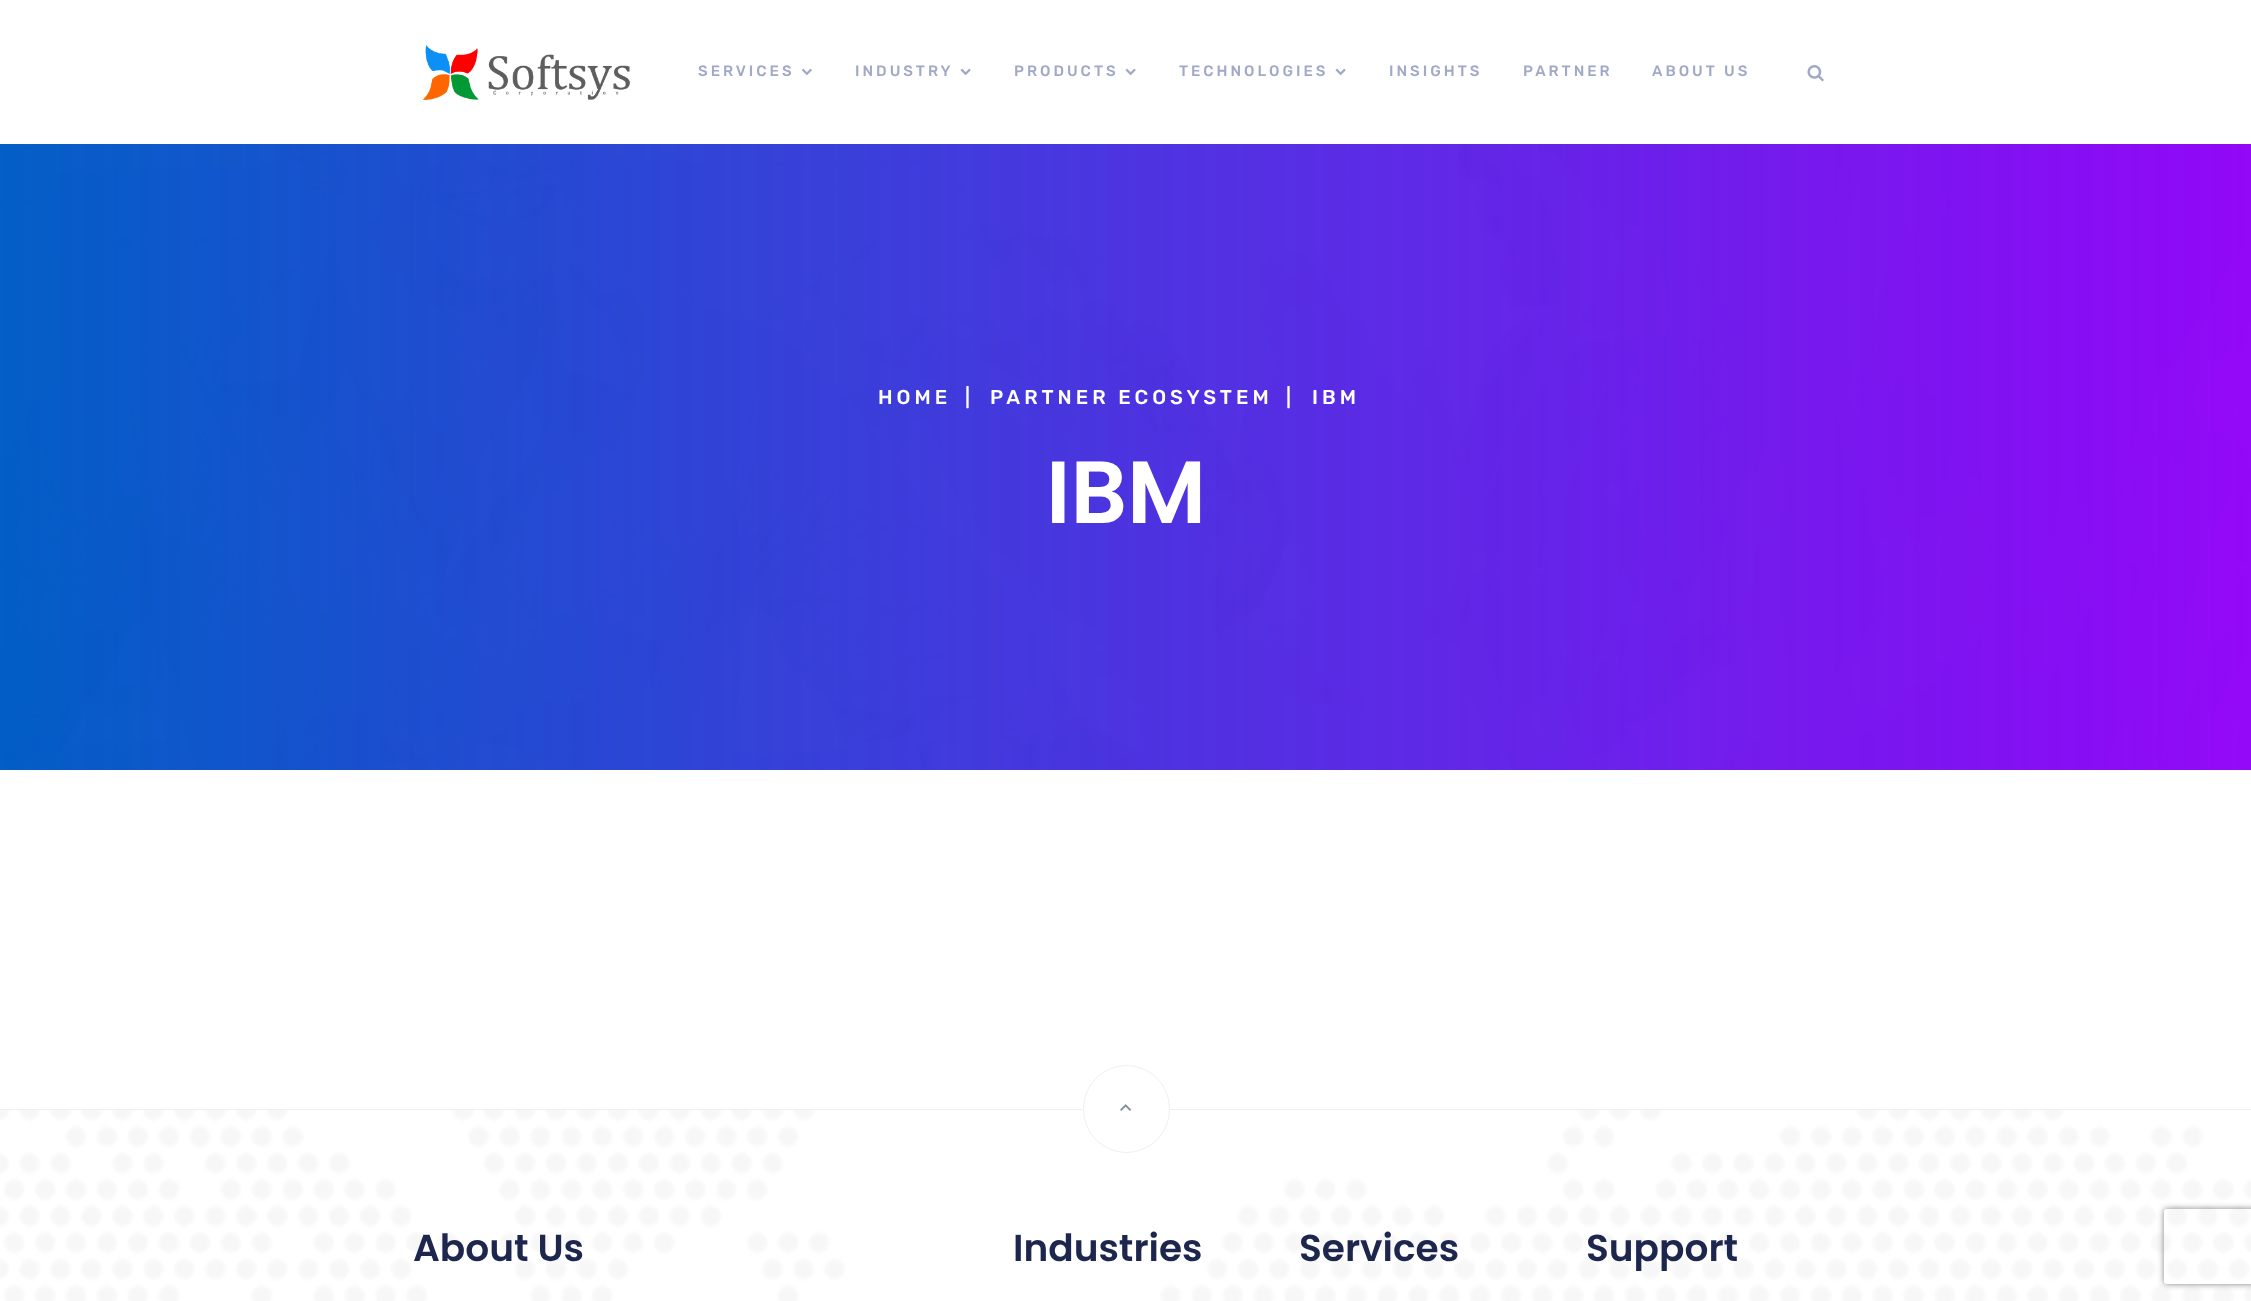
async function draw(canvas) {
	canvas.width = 2251;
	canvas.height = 1301;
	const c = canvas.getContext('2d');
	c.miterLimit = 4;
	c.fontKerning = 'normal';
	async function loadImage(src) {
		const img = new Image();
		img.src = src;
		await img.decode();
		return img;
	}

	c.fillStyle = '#fff';
	c.fillRect(0, 0, 2251, 1301);
	c.drawImage(await loadImage('img1.png'), 423, 45, 207, 55);
	c.letterSpacing = '3px';
	c.font = '500 15px Rubik';
	c.fillStyle = '#a2a9c7';
	c.fillText('SERVICES', 698, 76);
	c.drawImage(await loadImage('img2.png'), 801, 68, 11, 8);
	c.fillText('INDUSTRY', 855, 76);
	c.drawImage(await loadImage('img3.png'), 960, 68, 11, 8);
	c.fillText('PRODUCTS', 1014, 76);
	c.drawImage(await loadImage('img3.png'), 1125, 68, 11, 8);
	c.fillText('TECHNOLOGIES', 1179, 76);
	c.drawImage(await loadImage('img3.png'), 1335, 68, 11, 8);
	for (const [text, x, y] of [
		['INSIGHTS', 1389, 76],
		['PARTNER', 1523, 76],
		['ABOUT US', 1652, 76],
	]) {
		c.fillText(text, x, y);
	}
	c.drawImage(await loadImage('img4.png'), 1807, 65, 17, 17);
	c.drawImage(await loadImage('img5.png'), 0, 144, 2251, 626);
	c.letterSpacing = '4px';
	c.font = '500 20px Rubik';
	c.fillStyle = '#fff';
	for (const [text, x, y] of [
		['HOME', 878, 404],
		['|', 965, 404],
		['PARTNER ECOSYSTEM', 990, 404],
		['|', 1286, 404],
		['IBM', 1312, 404],
	]) {
		c.fillText(text, x, y);
	}
	c.letterSpacing = '0px';
	c.font = '600 88px Poppins';
	c.fillText('IBM', 1046, 523);
	c.drawImage(await loadImage('img6.png'), 0, 1110, 2251, 191);
	c.fillStyle = '#efefef';
	c.fillRect(0, 1109, 2251, 1);
	c.fillStyle = '#fff';
	c.beginPath();
	c.roundRect(1083.5, 1065.5, 86, 87, 43);
	c.fill();
	c.strokeStyle = '#efefef';
	c.stroke();
	c.drawImage(await loadImage('img7.png'), 1120, 1104, 12, 7);
	c.font = '600 37.5px Poppins';
	c.fillStyle = '#1d274e';
	for (const [text, x, y] of [
		['About Us', 413, 1261],
		['Industries', 1013, 1261],
		['Services', 1299, 1261],
		['Support', 1586, 1261],
	]) {
		c.fillText(text, x, y);
	}
	c.save();
	c.beginPath();
	c.moveTo(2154, 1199);
	c.lineTo(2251, 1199);
	c.lineTo(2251, 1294);
	c.lineTo(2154, 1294);
	c.closePath();
	c.moveTo(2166.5, 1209);
	c.lineTo(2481.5, 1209);
	c.bezierCurveTo(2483, 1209, 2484, 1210, 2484, 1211.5);
	c.lineTo(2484, 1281.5);
	c.bezierCurveTo(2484, 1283, 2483, 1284, 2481.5, 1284);
	c.lineTo(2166.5, 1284);
	c.bezierCurveTo(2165, 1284, 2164, 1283, 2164, 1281.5);
	c.lineTo(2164, 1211.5);
	c.bezierCurveTo(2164, 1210, 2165, 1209, 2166.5, 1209);
	c.closePath();
	c.clip('evenodd');
	c.fillStyle = '#808080';
	c.filter = 'blur(3px)';
	c.beginPath();
	c.roundRect(2164, 1209, 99, 75, 2.5);
	c.fill();
	c.filter = 'none';
	c.restore();
}

draw(document.querySelector('canvas'));
